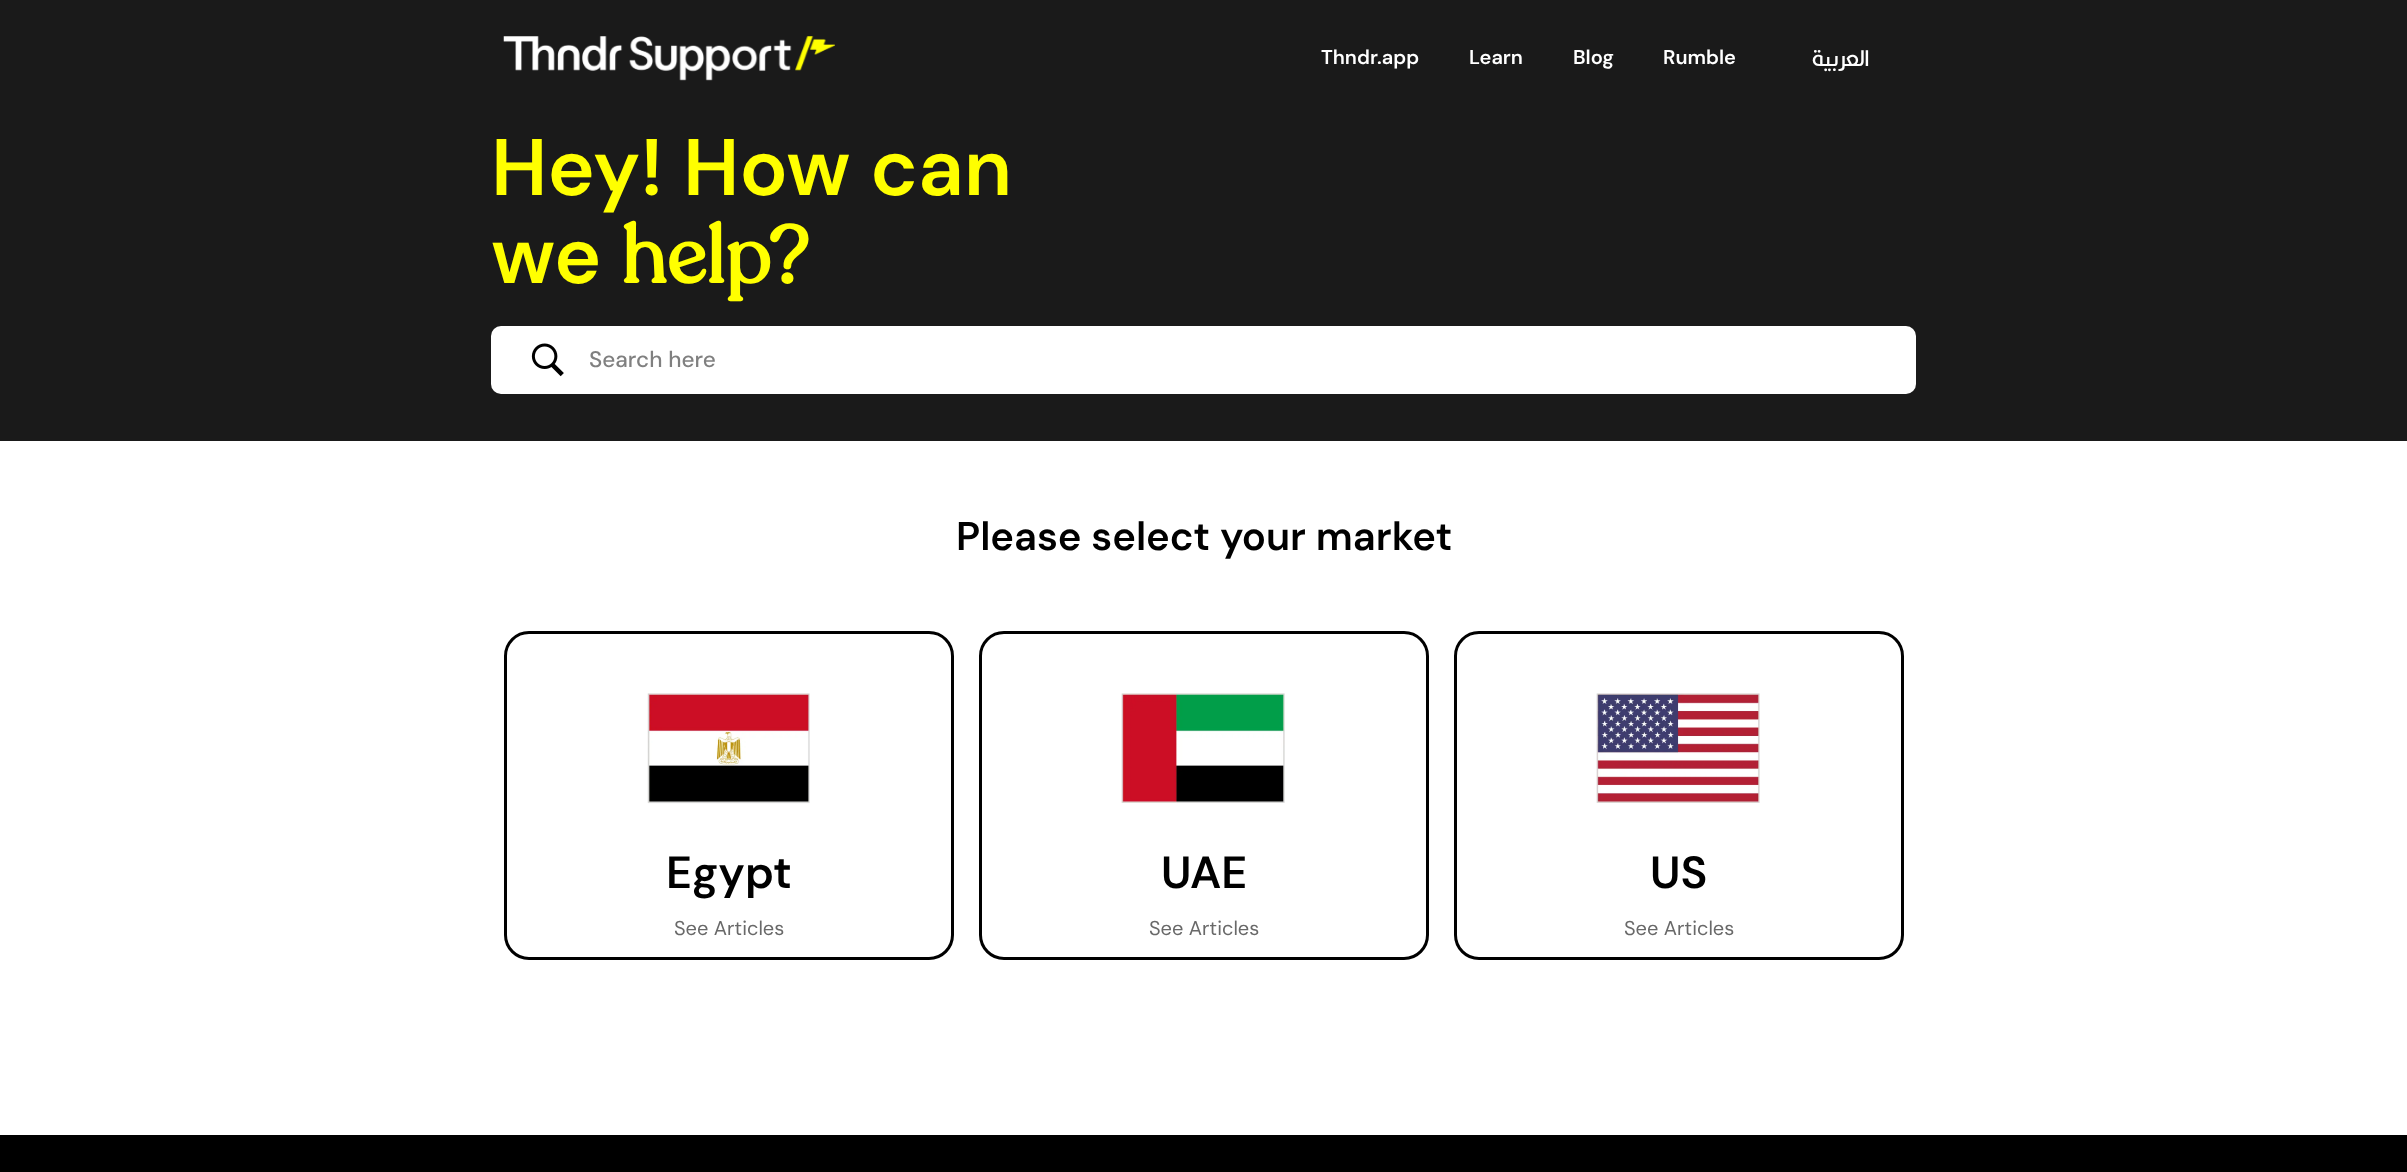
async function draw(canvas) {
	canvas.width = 2407;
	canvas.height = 1172;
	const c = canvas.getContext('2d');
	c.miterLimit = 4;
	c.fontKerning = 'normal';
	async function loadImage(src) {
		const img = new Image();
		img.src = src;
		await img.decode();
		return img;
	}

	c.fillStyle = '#fff';
	c.fillRect(0, 0, 2407, 1172);
	c.fillStyle = '#1a1a1a';
	c.fillRect(0, 0, 2407, 441);
	c.drawImage(await loadImage('img1.png'), 503, 36, 332, 45);
	c.font = '600 20px DM Sans';
	c.fillStyle = '#fff';
	for (const [text, x, y] of [
		['Thndr.app', 1321, 64],
		['Learn', 1469, 64],
		['Blog', 1573, 64],
		['Rumble', 1663, 64],
	]) {
		c.fillText(text, x, y);
	}
	c.direction = 'rtl';
	c.font = '25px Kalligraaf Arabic';
	c.fillText('العربية', 1869, 66);
	c.direction = 'ltr';
	c.font = '600 80px DM Sans';
	c.fillStyle = '#ff0';
	c.fillText('Hey! How can', 491, 195);
	c.fillText('we', 491, 283);
	c.font = 'bold 80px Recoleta';
	c.fillText('help?', 621, 283);
	c.fillStyle = '#fff';
	c.beginPath();
	c.roundRect(491, 326, 1425, 68, 10);
	c.fill();
	c.drawImage(await loadImage('img2.png'), 531, 343, 33, 34);
	c.font = '500 22.5px DM Sans';
	c.fillStyle = '#808080';
	c.fillText('Search here', 589, 367);
	c.font = '600 40px DM Sans';
	c.fillStyle = '#000';
	c.fillText('Please select your market', 956, 550);
	c.beginPath();
	c.roundRect(505.5, 632.5, 447, 326, 23.5);
	c.strokeStyle = '#000';
	c.lineWidth = 3;
	c.stroke();
	c.drawImage(await loadImage('img3.png'), 647, 693, 163, 111);
	c.font = '600 45px DM Sans';
	c.fillText('Egypt', 666, 888);
	c.font = '20px DM Sans';
	c.fillStyle = '#696969';
	c.fillText('See Articles', 674, 935);
	c.beginPath();
	c.roundRect(980.5, 632.5, 447, 326, 23.5);
	c.stroke();
	c.drawImage(await loadImage('img4.png'), 1121, 693, 164, 110);
	c.font = '600 45px DM Sans';
	c.fillStyle = '#000';
	c.fillText('UAE', 1161, 888);
	c.font = '20px DM Sans';
	c.fillStyle = '#696969';
	c.fillText('See Articles', 1149, 935);
	c.beginPath();
	c.roundRect(1455.5, 632.5, 447, 326, 23.5);
	c.stroke();
	c.drawImage(await loadImage('img5.png'), 1596, 693, 164, 110);
	c.font = '600 45px DM Sans';
	c.fillStyle = '#000';
	c.fillText('US', 1650, 888);
	c.font = '20px DM Sans';
	c.fillStyle = '#696969';
	c.fillText('See Articles', 1624, 935);
	c.fillStyle = '#000';
	c.fillRect(0, 1135, 2407, 37);
}

draw(document.querySelector('canvas'));
